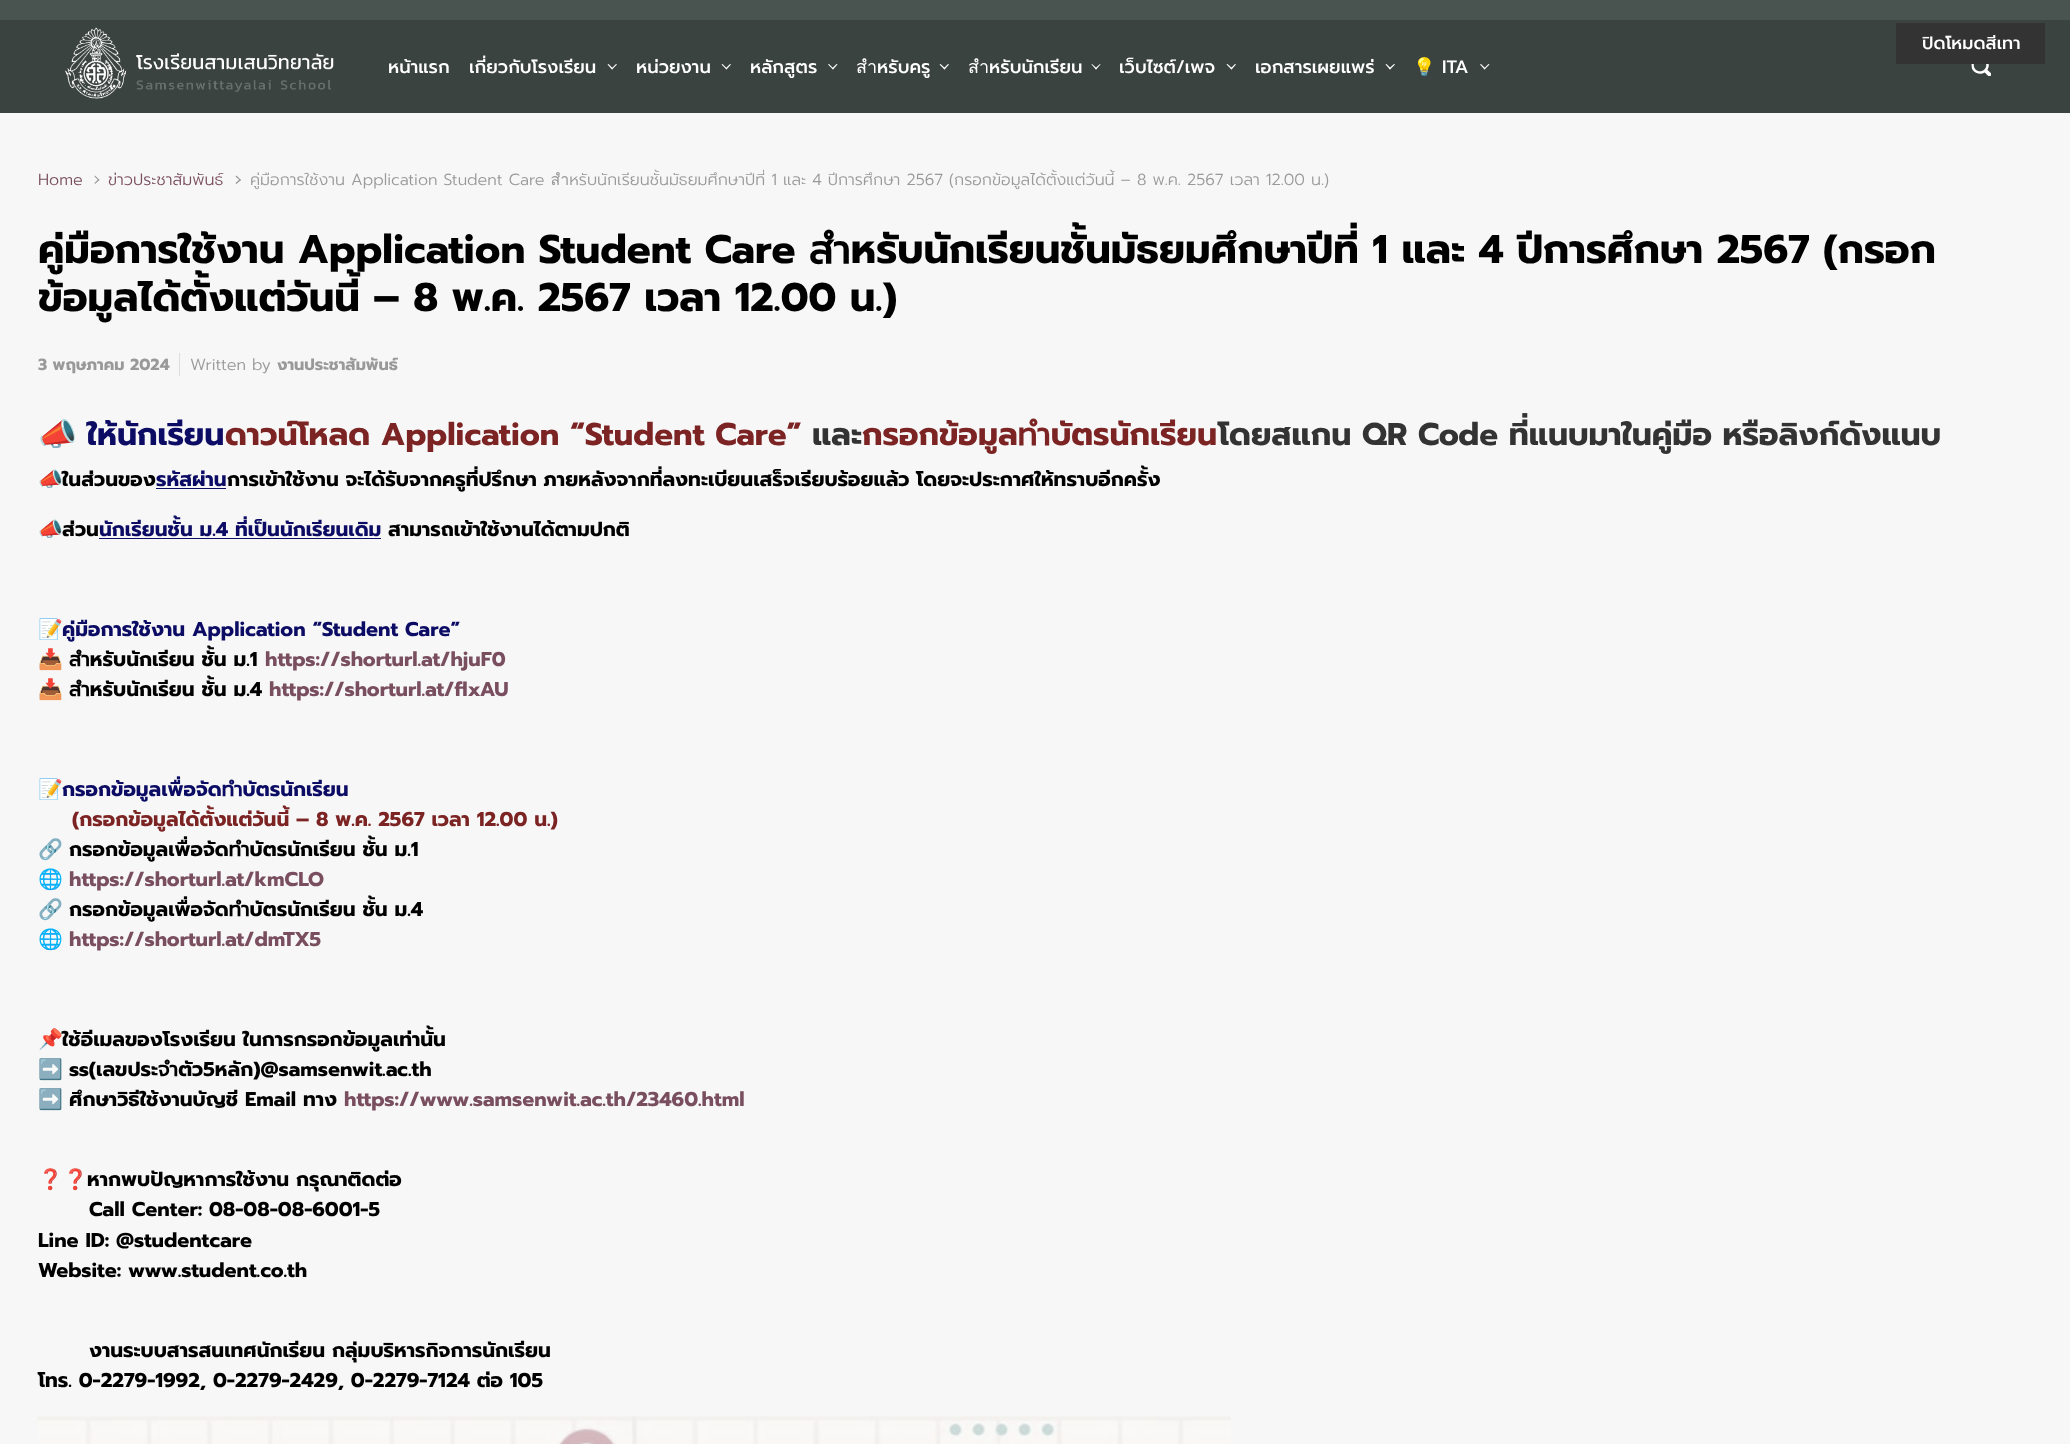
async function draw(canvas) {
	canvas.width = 2070;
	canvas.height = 1444;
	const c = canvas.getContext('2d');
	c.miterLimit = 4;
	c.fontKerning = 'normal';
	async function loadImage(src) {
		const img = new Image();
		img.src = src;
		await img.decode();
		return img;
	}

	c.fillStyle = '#49534f';
	c.fillRect(0, 0, 2070, 1444);
	c.fillStyle = '#3b4341';
	c.fillRect(0, 20, 2070, 93);
	c.fillStyle = '#333';
	c.fillRect(1896, 23, 149, 41);
	c.font = '500 17.5px Prompt';
	c.fillStyle = '#fff';
	c.fillText('ปิดโหมดสีเทา', 1922, 49);
	c.drawImage(await loadImage('img1.png'), 65, 27, 269, 72);
	c.font = '500 18px Prompt';
	c.fillText('หน้าแรก', 388, 73);
	c.fillText('เกี่ยวกับโรงเรียน', 469, 73);
	c.beginPath();
	c.moveTo(616, 64);
	c.lineTo(617, 64.5);
	c.lineTo(612, 69.5);
	c.lineTo(611.5, 68.5);
	c.closePath();
	c.fill();
	c.beginPath();
	c.moveTo(608.5, 64);
	c.lineTo(613, 68.5);
	c.lineTo(612, 69.5);
	c.lineTo(607.5, 64.5);
	c.closePath();
	c.fill();
	c.fillText('หน่วยงาน', 636, 73);
	c.beginPath();
	c.moveTo(730, 64);
	c.lineTo(731, 64.5);
	c.lineTo(726.5, 69.5);
	c.lineTo(725.5, 68.5);
	c.closePath();
	c.fill();
	c.beginPath();
	c.moveTo(722.5, 64);
	c.lineTo(727, 68.5);
	c.lineTo(726.5, 69.5);
	c.lineTo(721.5, 64.5);
	c.closePath();
	c.fill();
	c.fillText('หลักสูตร', 750, 73);
	c.beginPath();
	c.moveTo(836.5, 64);
	c.lineTo(837.5, 64.5);
	c.lineTo(833, 69.5);
	c.lineTo(832, 68.5);
	c.closePath();
	c.fill();
	c.beginPath();
	c.moveTo(829, 64);
	c.lineTo(833.5, 68.5);
	c.lineTo(833, 69.5);
	c.lineTo(828, 64.5);
	c.closePath();
	c.fill();
	c.fillText('สำหรับครู', 856, 73);
	c.beginPath();
	c.moveTo(948, 64);
	c.lineTo(949, 64.5);
	c.lineTo(944.5, 69.5);
	c.lineTo(943.5, 68.5);
	c.closePath();
	c.fill();
	c.beginPath();
	c.moveTo(940.5, 64);
	c.lineTo(945.5, 68.5);
	c.lineTo(944.5, 69.5);
	c.lineTo(939.5, 64.5);
	c.closePath();
	c.fill();
	c.fillText('สำหรับนักเรียน', 968, 73);
	c.beginPath();
	c.moveTo(1100, 64);
	c.lineTo(1100.5, 64.5);
	c.lineTo(1096, 69.5);
	c.lineTo(1095, 68.5);
	c.closePath();
	c.fill();
	c.beginPath();
	c.moveTo(1092, 64);
	c.lineTo(1097, 68.5);
	c.lineTo(1096, 69.5);
	c.lineTo(1091.5, 64.5);
	c.closePath();
	c.fill();
	c.fillText('เว็บไซต์/เพจ', 1119, 73);
	c.beginPath();
	c.moveTo(1235, 64);
	c.lineTo(1236, 64.5);
	c.lineTo(1231.5, 69.5);
	c.lineTo(1230.5, 68.5);
	c.closePath();
	c.fill();
	c.beginPath();
	c.moveTo(1227.5, 64);
	c.lineTo(1232.5, 68.5);
	c.lineTo(1231.5, 69.5);
	c.lineTo(1226.5, 64.5);
	c.closePath();
	c.fill();
	c.fillText('เอกสารเผยแพร่', 1255, 73);
	c.beginPath();
	c.moveTo(1394, 64);
	c.lineTo(1395, 64.5);
	c.lineTo(1390, 69.5);
	c.lineTo(1389, 68.5);
	c.closePath();
	c.fill();
	c.beginPath();
	c.moveTo(1386.5, 64);
	c.lineTo(1391, 68.5);
	c.lineTo(1390, 69.5);
	c.lineTo(1385.5, 64.5);
	c.closePath();
	c.fill();
	c.font = '18px Noto Color Emoji';
	c.fillText('💡', 1413, 73);
	c.font = '500 18px Prompt';
	c.fillText('ITA', 1442, 73);
	c.beginPath();
	c.moveTo(1488.5, 64);
	c.lineTo(1489.5, 64.5);
	c.lineTo(1484.5, 69.5);
	c.lineTo(1484, 68.5);
	c.closePath();
	c.fill();
	c.beginPath();
	c.moveTo(1481, 64);
	c.lineTo(1485.5, 68.5);
	c.lineTo(1484.5, 69.5);
	c.lineTo(1480, 64.5);
	c.closePath();
	c.fill();
	c.drawImage(await loadImage('img2.png'), 1971, 64, 20, 12);
	c.fillStyle = '#f7f7f7';
	c.fillRect(0, 113, 2070, 1331);
	c.font = '300 16px Prompt';
	c.fillStyle = '#794e5f';
	c.fillText('Home', 38, 185);
	c.fillStyle = '#999';
	c.beginPath();
	c.moveTo(94.5, 176.5);
	c.lineTo(95, 175.5);
	c.lineTo(99.5, 180);
	c.lineTo(98.5, 180.5);
	c.closePath();
	c.fill();
	c.beginPath();
	c.moveTo(94.5, 183);
	c.lineTo(98.5, 179);
	c.lineTo(99.5, 180);
	c.lineTo(95, 184);
	c.closePath();
	c.fill();
	c.fillStyle = '#794e5f';
	c.fillText('ข่าวประชาสัมพันธ์', 108, 185);
	c.fillStyle = '#999';
	c.beginPath();
	c.moveTo(235.5, 176.5);
	c.lineTo(236.5, 175.5);
	c.lineTo(241, 180);
	c.lineTo(240, 180.5);
	c.closePath();
	c.fill();
	c.beginPath();
	c.moveTo(235.5, 183);
	c.lineTo(240, 179);
	c.lineTo(241, 180);
	c.lineTo(236.5, 184);
	c.closePath();
	c.fill();
	c.fillText('คู่มือการใช้งาน Application Student Care สำหรับนักเรียนชั้นมัธยมศึกษาปีที่ 1 และ 4 ปีการศึกษา 2567 (กรอกข้อมูลได้ตั้งแต่วันนี้ – 8 พ.ค. 2567 เวลา 12.00 น.)', 250, 185);
	c.font = 'bold 40px Prompt';
	c.fillStyle = '#000';
	c.fillText('คู่มือการใช้งาน Application Student Care สำหรับนักเรียนชั้นมัธยมศึกษาปีที่ 1 และ 4 ปีการศึกษา 2567 (กรอก', 38, 263);
	c.fillText('ข้อมูลได้ตั้งแต่วันนี้ – 8 พ.ค. 2567 เวลา 12.00 น.)', 38, 311);
	c.font = 'bold 16px Prompt';
	c.fillStyle = '#999';
	c.fillText('3 พฤษภาคม 2024', 38, 370);
	c.fillStyle = '#dedede';
	c.fillRect(179, 353, 1, 23);
	c.font = '300 16px Prompt';
	c.fillStyle = '#999';
	c.fillText('Written by', 190, 370);
	c.font = 'bold 16px Prompt';
	c.fillText('งานประชาสัมพันธ์', 277, 370);
	c.font = 'bold 31.4px Noto Color Emoji';
	c.fillStyle = '#333';
	c.fillText('📣', 38, 445);
	c.font = 'bold 31.4px Prompt';
	c.fillStyle = '#0c0c65';
	c.fillText('ให้นักเรียน', 87, 445);
	c.fillStyle = '#7c2323';
	c.fillText('ดาวน์โหลด Application “Student Care”', 225, 445);
	c.fillStyle = '#333';
	c.fillText('และ', 812, 445);
	c.fillStyle = '#7c2323';
	c.fillText('กรอกข้อมูลทำบัตรนักเรียน', 862, 445);
	c.fillStyle = '#333';
	c.fillText('โดยสแกน QR Code ที่แนบมาในคู่มือ หรือลิงก์ดังแนบ', 1218, 445);
	c.font = 'bold 20px Noto Color Emoji';
	c.fillStyle = '#000';
	c.fillText('📣', 38, 486);
	c.font = 'bold 20px Prompt';
	c.fillText('ในส่วนของ', 62, 486);
	c.fillStyle = '#0c0c65';
	c.fillRect(156, 488, 70, 1);
	c.fillText('รหัสผ่าน', 156, 486);
	c.fillStyle = '#000';
	c.fillText('การเข้าใช้งาน จะได้รับจากครูที่ปรึกษา ภายหลังจากที่ลงทะเบียนเสร็จเรียบร้อยแล้ว โดยจะประกาศให้ทราบอีกครั้ง', 227, 486);
	c.font = 'bold 20px Noto Color Emoji';
	c.fillText('📣', 38, 536);
	c.font = 'bold 20px Prompt';
	c.fillText('ส่วน', 62, 536);
	c.fillStyle = '#0c0c65';
	c.fillRect(99, 538, 282, 1);
	c.fillText('นักเรียนชั้น ม.4 ที่เป็นนักเรียนเดิม', 99, 536);
	c.fillStyle = '#000';
	c.fillText('สามารถเข้าใช้งานได้ตามปกติ', 388, 536);
	c.font = 'bold 20px Noto Color Emoji';
	c.fillText('📝', 38, 636);
	c.font = 'bold 20px Prompt';
	c.fillStyle = '#0c0c65';
	c.fillText('คู่มือการใช้งาน Application “Student Care”', 62, 636);
	c.font = 'bold 20px Noto Color Emoji';
	c.fillStyle = '#000';
	c.fillText('📥', 38, 666);
	c.font = 'bold 20px Prompt';
	c.fillText('สำหรับนักเรียน ชั้น ม.1', 69, 666);
	c.fillStyle = '#794e5f';
	c.fillText('https://shorturl.at/hjuF0', 265, 666);
	c.font = 'bold 20px Noto Color Emoji';
	c.fillStyle = '#000';
	c.fillText('📥', 38, 696);
	c.font = 'bold 20px Prompt';
	c.fillText('สำหรับนักเรียน ชั้น ม.4', 69, 696);
	c.fillStyle = '#794e5f';
	c.fillText('https://shorturl.at/flxAU', 269, 696);
	c.font = 'bold 20px Noto Color Emoji';
	c.fillStyle = '#000';
	c.fillText('📝', 38, 796);
	c.font = 'bold 20px Prompt';
	c.fillStyle = '#0c0c65';
	c.fillText('กรอกข้อมูลเพื่อจัดทำบัตรนักเรียน', 62, 796);
	c.fillStyle = '#7c2323';
	c.fillText('(กรอกข้อมูลได้ตั้งแต่วันนี้ – 8 พ.ค. 2567 เวลา 12.00 น.)', 72, 826);
	c.font = 'bold 20px Noto Color Emoji';
	c.fillStyle = '#000';
	c.fillText('🔗', 38, 856);
	c.font = 'bold 20px Prompt';
	c.fillText('กรอกข้อมูลเพื่อจัดทำบัตรนักเรียน ชั้น ม.1', 69, 856);
	c.font = 'bold 20px Noto Color Emoji';
	c.fillText('🌐', 38, 886);
	c.font = 'bold 20px Prompt';
	c.fillStyle = '#794e5f';
	c.fillText('https://shorturl.at/kmCLO', 69, 886);
	c.font = 'bold 20px Noto Color Emoji';
	c.fillStyle = '#000';
	c.fillText('🔗', 38, 916);
	c.font = 'bold 20px Prompt';
	c.fillText('กรอกข้อมูลเพื่อจัดทำบัตรนักเรียน ชั้น ม.4', 69, 916);
	c.font = 'bold 20px Noto Color Emoji';
	c.fillText('🌐', 38, 946);
	c.font = 'bold 20px Prompt';
	c.fillStyle = '#794e5f';
	c.fillText('https://shorturl.at/dmTX5', 69, 946);
	c.font = 'bold 20px Noto Color Emoji';
	c.fillStyle = '#000';
	c.fillText('📌', 38, 1046);
	c.font = 'bold 20px Prompt';
	c.fillText('ใช้อีเมลของโรงเรียน ในการกรอกข้อมูลเท่านั้น', 62, 1046);
	c.font = 'bold 20px Noto Color Emoji';
	c.fillText('➡️', 38, 1076);
	c.font = 'bold 20px Prompt';
	c.fillText('ss(เลขประจำตัว5หลัก)@samsenwit.ac.th', 69, 1076);
	c.font = 'bold 20px Noto Color Emoji';
	c.fillText('➡️', 38, 1106);
	c.font = 'bold 20px Prompt';
	c.fillText('ศึกษาวิธีใช้งานบัญชี Email ทาง', 69, 1106);
	c.fillStyle = '#794e5f';
	c.fillText('https://www.samsenwit.ac.th/23460.html', 344, 1106);
	c.font = 'bold 20px Noto Color Emoji';
	c.fillStyle = '#000';
	c.fillText('❓❓', 38, 1186);
	c.font = 'bold 20px Prompt';
	for (const [text, x, y] of [
		['หากพบปัญหาการใช้งาน กรุณาติดต่อ', 87, 1186],
		['Call Center: 08-08-08-6001-5', 89, 1216],
		['Line ID: @studentcare', 38, 1247],
		['Website: www.student.co.th', 38, 1277],
		['งานระบบสารสนเทศนักเรียน กลุ่มบริหารกิจการนักเรียน', 89, 1357],
		['โทร. 0-2279-1992, 0-2279-2429, 0-2279-7124 ต่อ 105', 38, 1387],
	]) {
		c.fillText(text, x, y);
	}
	c.drawImage(await loadImage('img3.png'), 38, 1416, 1193, 28);
}

draw(document.querySelector('canvas'));
